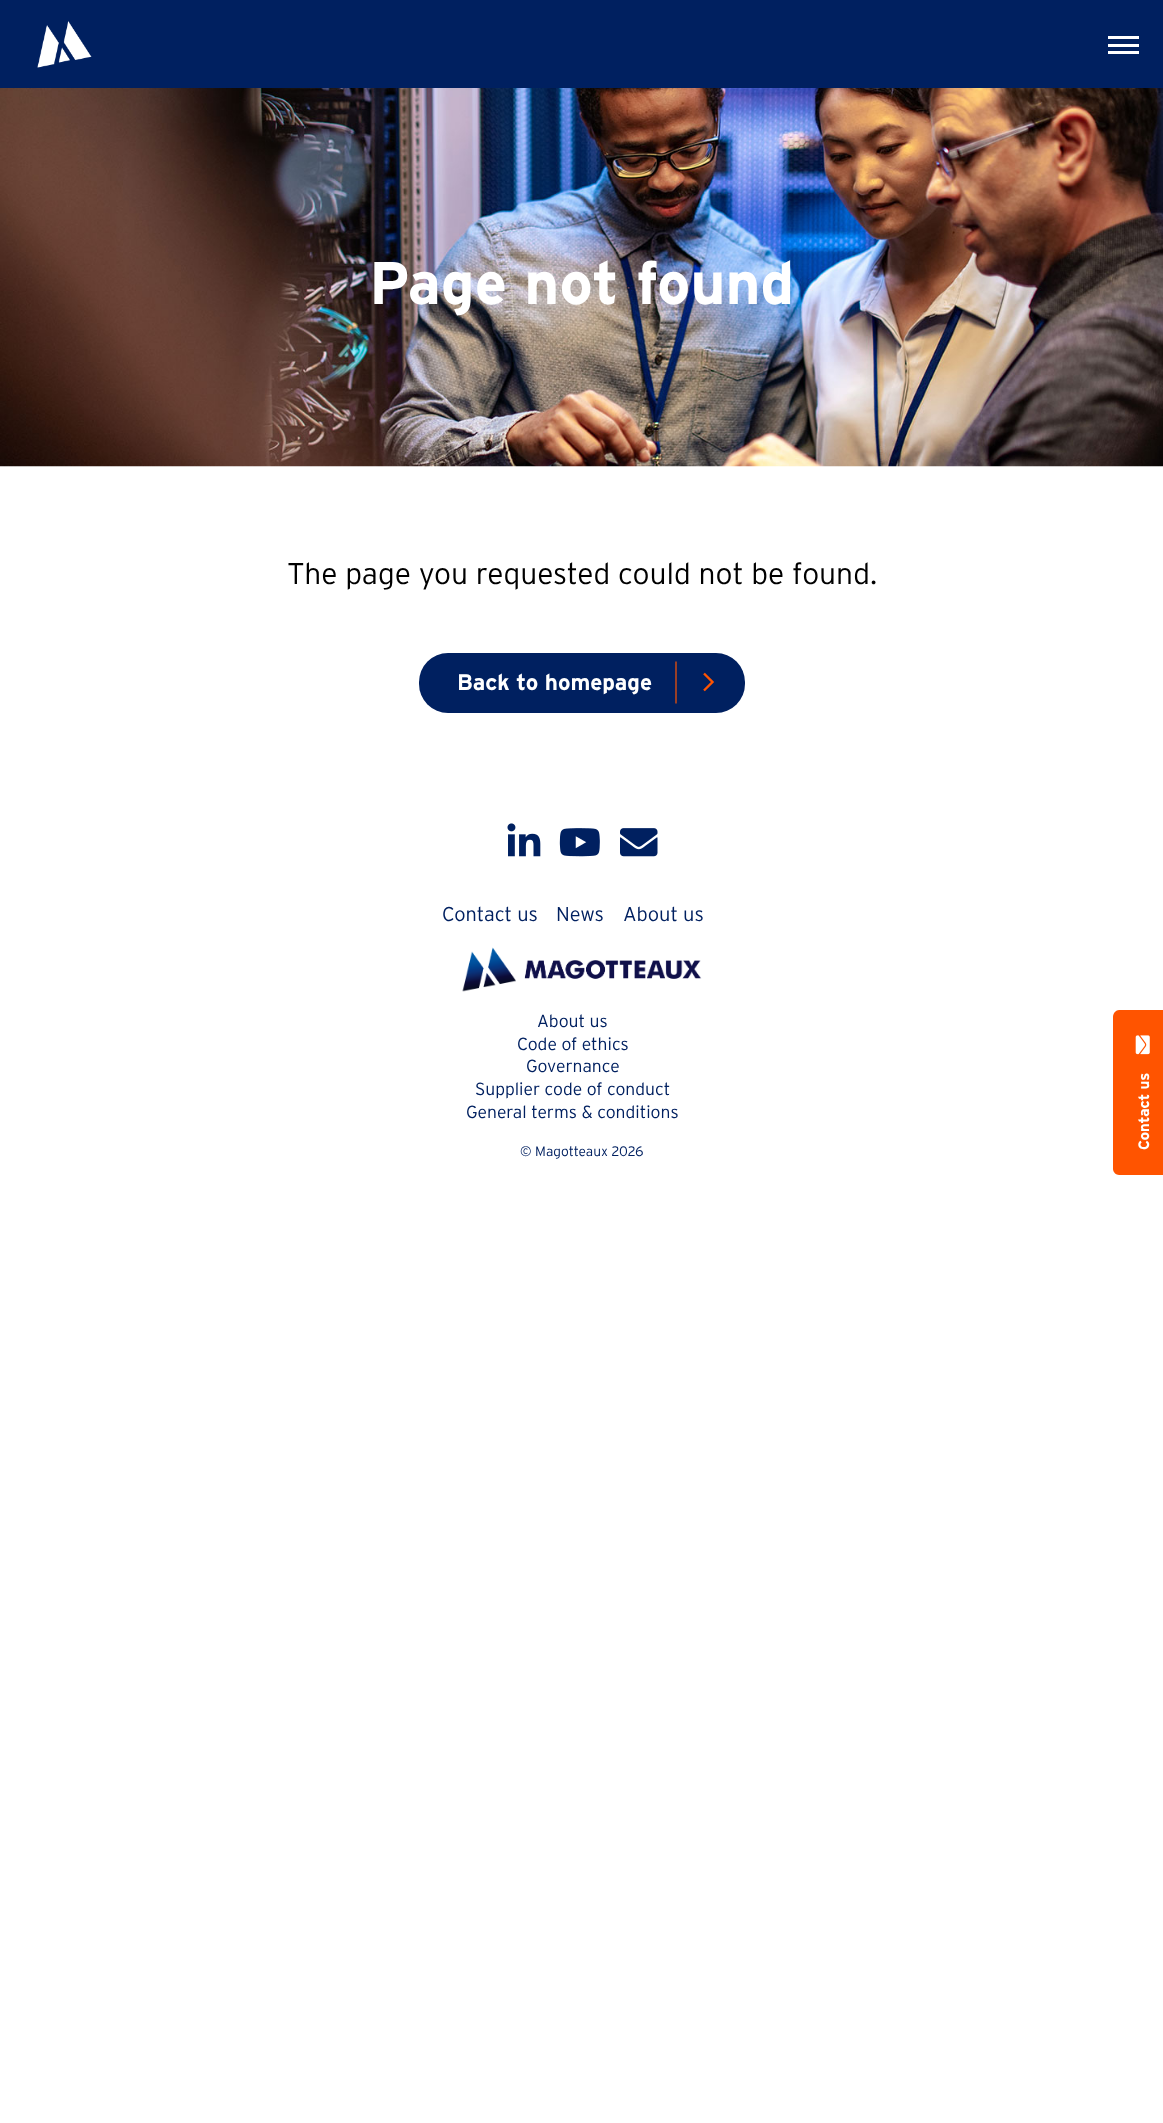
async function draw(canvas) {
	canvas.width = 1163;
	canvas.height = 2123;
	const c = canvas.getContext('2d');
	c.miterLimit = 4;
	c.fontKerning = 'normal';
	async function loadImage(src) {
		const img = new Image();
		img.src = src;
		await img.decode();
		return img;
	}

	c.fillStyle = '#fff';
	c.fillRect(0, 0, 1163, 2123);
	c.fillStyle = '#002060';
	c.fillRect(0, 0, 1163, 88);
	c.drawImage(await loadImage('img1.png'), 37, 21, 55, 47);
	for (const [x, y, w, h, color] of [
		[1108, 44, 31, 3, '#fff'],
		[1108, 36, 31, 3, '#fff'],
		[1108, 51, 31, 3, '#fff'],
	]) {
		c.fillStyle = color;
		c.fillRect(x, y, w, h);
	}
	c.drawImage(await loadImage('img2.png'), 0, 88, 1163, 379);
	c.font = 'bold 60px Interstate';
	c.fillText('Page not found', 369, 304);
	c.font = '300 30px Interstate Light';
	c.fillStyle = '#000';
	c.fillText('The page you requested could not be found.', 287, 584);
	c.fillStyle = '#002060';
	c.beginPath();
	c.roundRect(419, 653, 326, 60, 29);
	c.fill();
	c.font = 'bold 22.5px Interstate';
	c.fillStyle = '#fff';
	c.fillText('Back to homepage', 457, 690);
	c.beginPath();
	c.moveTo(704, 673.5);
	c.lineTo(712.5, 682);
	c.lineTo(704, 690.5);
	c.strokeStyle = '#ff5400';
	c.lineWidth = 2.4;
	c.stroke();
	c.beginPath();
	c.moveTo(676, 661.5);
	c.lineTo(676, 703.5);
	c.lineWidth = 1.2;
	c.stroke();
	c.drawImage(await loadImage('img3.png'), 507, 823, 34, 34);
	c.drawImage(await loadImage('img4.png'), 559, 828, 41, 29);
	c.drawImage(await loadImage('img5.png'), 620, 828, 38, 29);
	c.font = '300 20px Interstate Light';
	c.fillStyle = '#002060';
	for (const [text, x, y] of [
		['Contact us', 442, 921],
		['News', 556, 921],
		['About us', 623, 921],
	]) {
		c.fillText(text, x, y);
	}
	c.drawImage(await loadImage('img6.png'), 462, 947, 240, 45);
	c.font = '300 17.5px Interstate Light';
	for (const [text, x, y] of [
		['About us', 537, 1027],
		['Code of ethics', 517, 1050],
		['Governance', 526, 1072],
		['Supplier code of conduct', 475, 1095],
		['General terms & conditions', 466, 1118],
	]) {
		c.fillText(text, x, y);
	}
	c.font = '300 13.75px Interstate Light';
	c.fillText('© Magotteaux 2026', 520, 1156);
	c.fillStyle = '#ff5400';
	c.beginPath();
	c.moveTo(1113, 1169);
	c.lineTo(1113, 1017);
	c.bezierCurveTo(1113, 1013, 1116, 1010, 1119, 1010);
	c.lineTo(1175, 1010);
	c.lineTo(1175, 1175);
	c.lineTo(1119, 1175);
	c.bezierCurveTo(1116, 1175, 1113, 1172, 1113, 1169);
	c.closePath();
	c.fill();
	c.drawImage(await loadImage('img7.png'), 1135, 1035, 15, 20);
	c.font = 'bold 15px Interstate';
	c.fillStyle = '#fff';
	c.save();
	c.translate(1149, 1150);
	c.rotate(-90 * Math.PI / 180);
	c.fillText('Contact us', 0, 0);
	c.restore();
}

draw(document.querySelector('canvas'));
